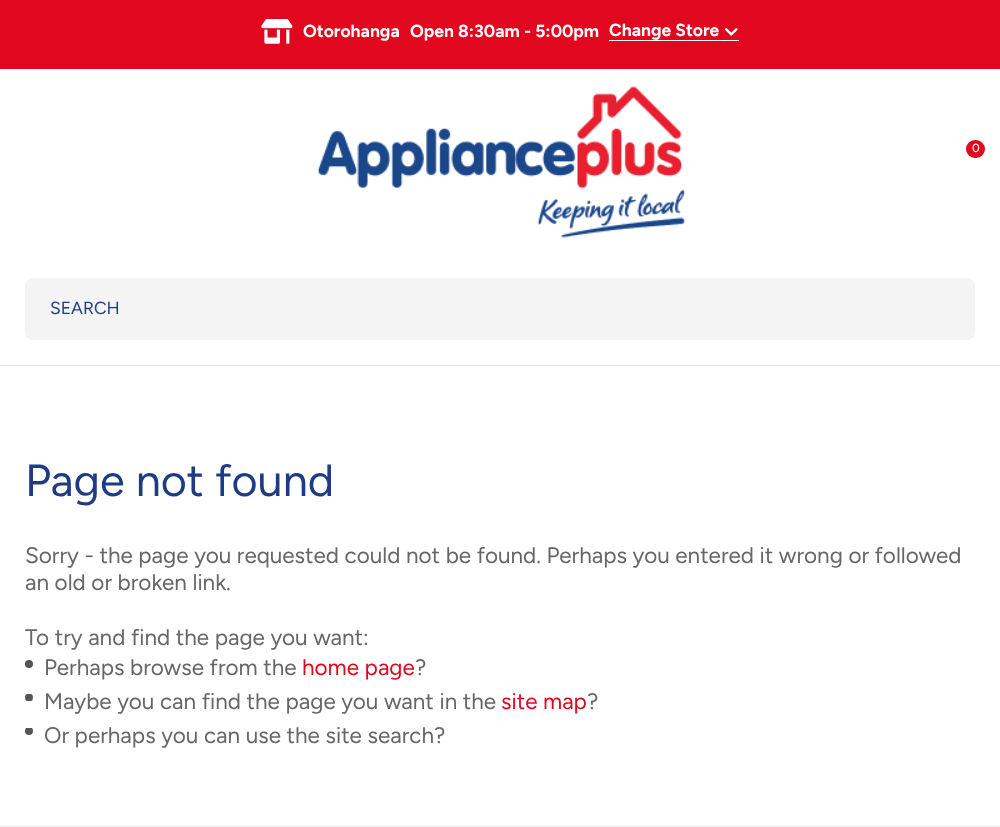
async function draw(canvas) {
	canvas.width = 1000;
	canvas.height = 827;
	const c = canvas.getContext('2d');
	c.miterLimit = 4;
	c.fontKerning = 'normal';
	async function loadImage(src) {
		const img = new Image();
		img.src = src;
		await img.decode();
		return img;
	}

	c.fillStyle = '#fff';
	c.fillRect(0, 0, 1000, 827);
	c.fillStyle = '#e1071f';
	c.fillRect(0, 0, 1000, 69);
	c.drawImage(await loadImage('img1.png'), 261, 19, 32, 25);
	c.font = 'bold 17.5px Figtree';
	c.fillStyle = '#fff';
	for (const [text, x, y] of [
		['Otorohanga', 303, 37],
		['Open 8:30am - 5:00pm', 410, 37],
		['Change Store', 609, 36],
	]) {
		c.fillText(text, x, y);
	}
	c.drawImage(await loadImage('img2.png'), 724, 28, 14, 8);
	c.fillRect(609, 40, 130, 1);
	c.drawImage(await loadImage('img3.png'), 317, 86, 369, 152);
	c.fillStyle = '#e1071f';
	c.beginPath();
	c.roundRect(966, 140, 19, 18, 9);
	c.fill();
	c.font = '500 12px Figtree';
	c.fillStyle = '#f8f8f8';
	c.fillText('0', 972, 152);
	c.fillStyle = '#f4f4f4';
	c.beginPath();
	c.roundRect(25, 278, 950, 62, 8);
	c.fill();
	c.font = '17.5px Figtree';
	c.fillStyle = '#1e3c84';
	c.fillText('SEARCH', 50, 314);
	c.fillStyle = '#e1e1e1';
	c.fillRect(0, 365, 1000, 1);
	c.font = '45px Figtree';
	c.fillStyle = '#1e3c84';
	c.fillText('Page not found', 25, 496);
	c.font = '22.5px Figtree';
	c.fillStyle = '#666';
	for (const [text, x, y] of [
		['Sorry - the page you requested could not be found. Perhaps you entered it wrong or followed', 25, 563],
		['an old or broken link.', 25, 590],
		['To try and find the page you want:', 25, 645],
	]) {
		c.fillText(text, x, y);
	}
	c.fillStyle = '#555';
	c.beginPath();
	c.arc(29, 664, 4, 0, 2 * Math.PI);
	c.fill();
	c.fillStyle = '#666';
	c.fillText('Perhaps browse from the', 44, 675);
	c.fillStyle = '#e1071f';
	c.fillText('home page', 302, 675);
	c.fillStyle = '#666';
	c.fillText('?', 415, 675);
	c.save();
	c.beginPath();
	c.rect(25, 694, 8, 7);
	c.clip();
	c.fillStyle = '#555';
	c.beginPath();
	c.arc(29, 697.5, 4, 0, 2 * Math.PI);
	c.fill();
	c.restore();
	c.fillText('Maybe you can find the page you want in the', 44, 709);
	c.fillStyle = '#e1071f';
	c.fillText('site map', 501, 709);
	c.fillStyle = '#666';
	c.fillText('?', 587, 709);
	c.save();
	c.beginPath();
	c.rect(25, 728, 8, 7);
	c.clip();
	c.fillStyle = '#555';
	c.beginPath();
	c.arc(29, 731, 4, 0, 2 * Math.PI);
	c.fill();
	c.restore();
	c.fillText('Or perhaps you can use the site search?', 44, 743);
	c.fillStyle = '#f4f4f4';
	c.fillRect(0, 825, 1000, 2);
}

draw(document.querySelector('canvas'));
